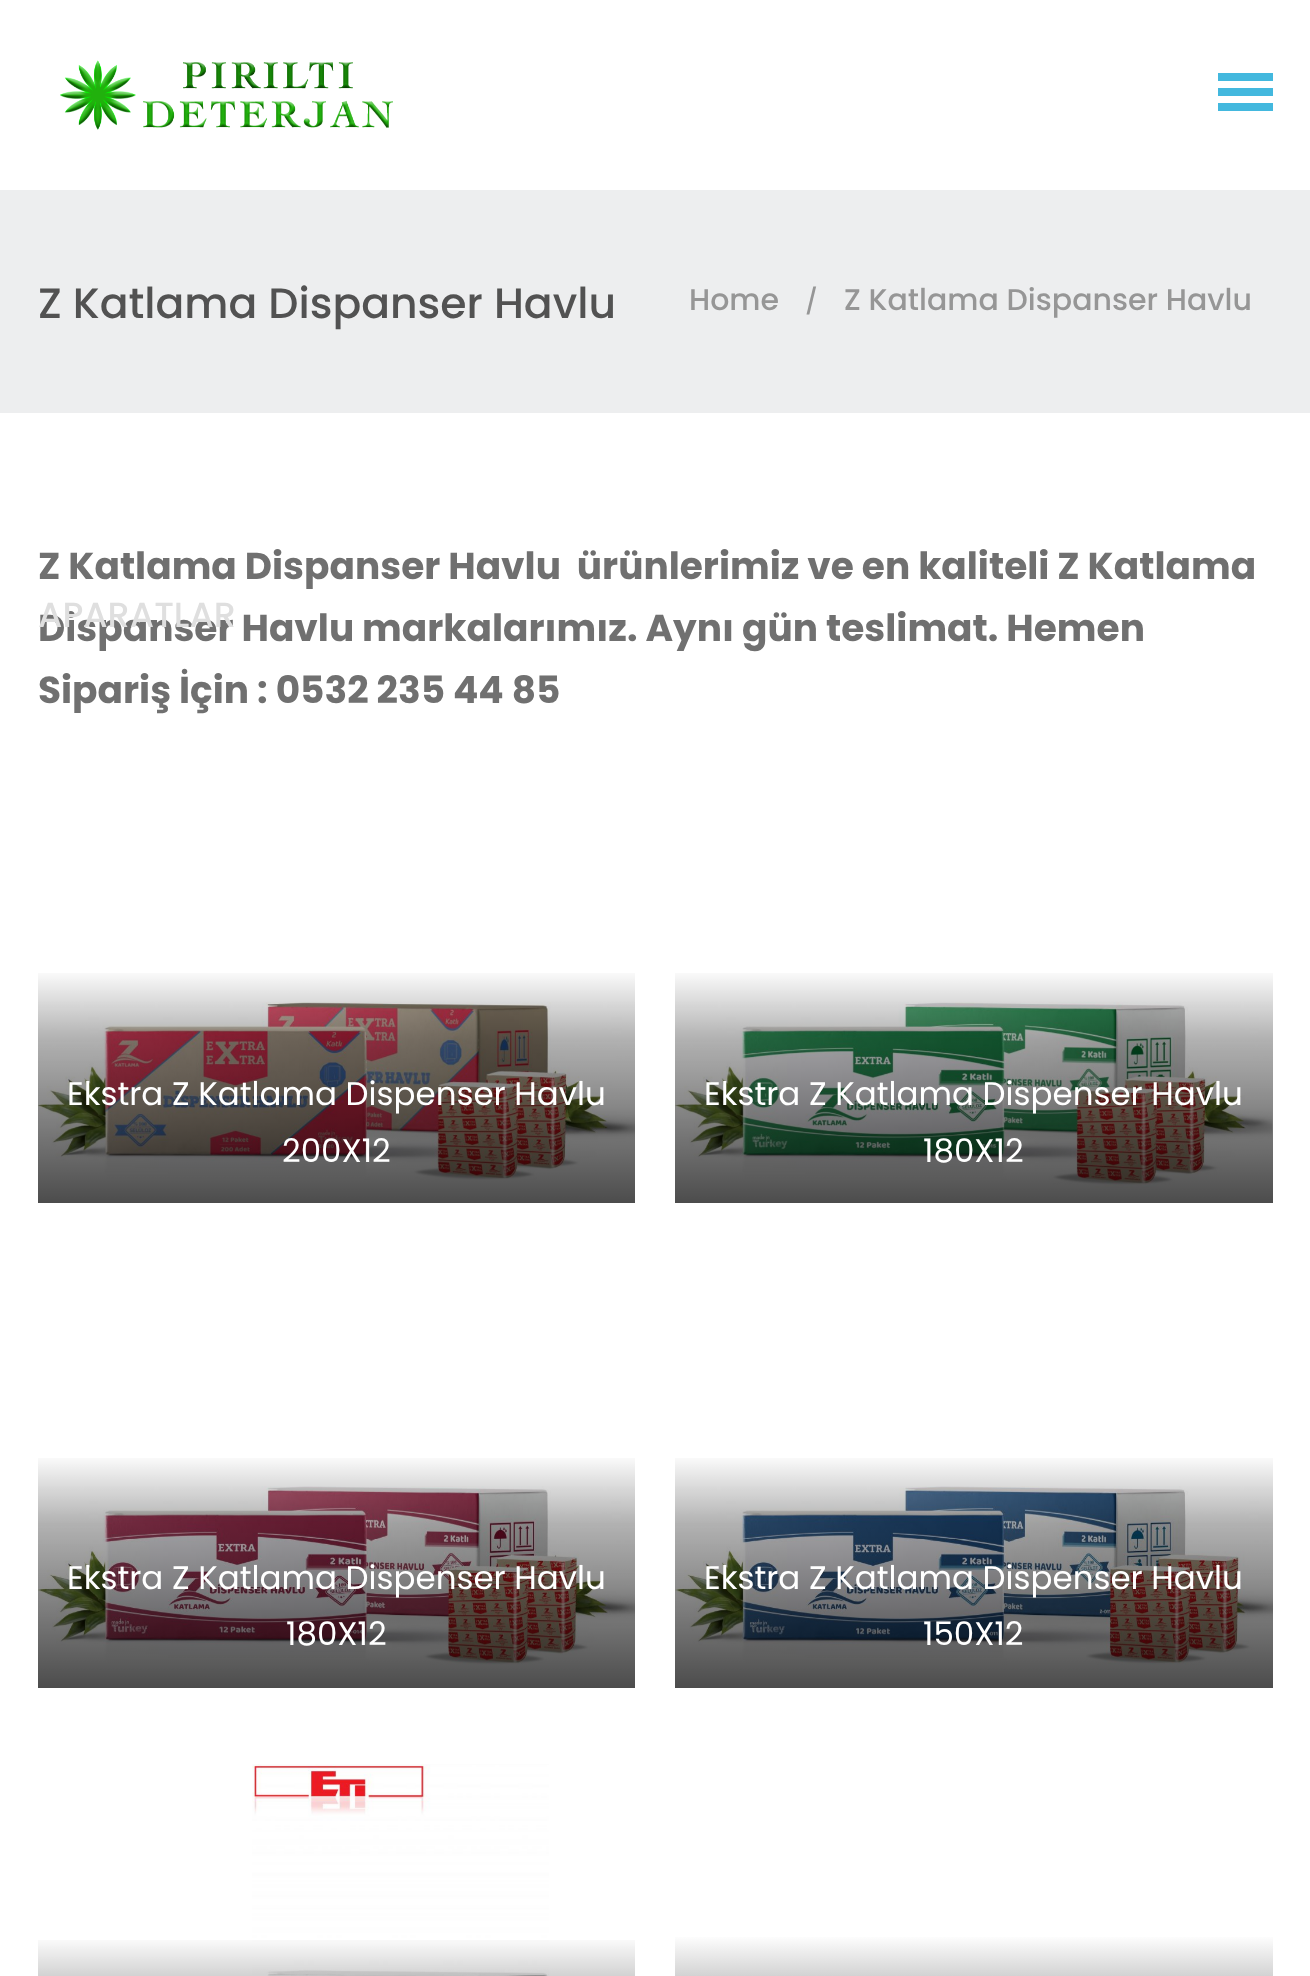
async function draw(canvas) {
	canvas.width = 1310;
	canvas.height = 1976;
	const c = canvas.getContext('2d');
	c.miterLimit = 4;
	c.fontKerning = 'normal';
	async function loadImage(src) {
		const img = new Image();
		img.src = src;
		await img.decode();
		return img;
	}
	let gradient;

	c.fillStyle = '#fff';
	c.fillRect(0, 0, 1310, 1976);
	c.fillStyle = '#edeeef';
	c.fillRect(0, 190, 1310, 223);
	c.font = '500 42.5px Poppins';
	c.fillStyle = '#525252';
	c.fillText('Z Katlama Dispanser Havlu', 38, 318);
	c.font = '500 30px Poppins';
	c.fillStyle = '#969696';
	c.fillText('Home', 689, 310);
	c.font = '500 25px Poppins';
	c.fillText('/', 805, 310);
	c.font = '500 30px Poppins';
	c.fillText('Z Katlama Dispanser Havlu', 844, 310);
	c.font = 'bold 37.5px Poppins';
	c.fillStyle = '#707070';
	for (const [text, x, y] of [
		['Z Katlama Dispanser Havlu  ürünlerimiz ve en kaliteli Z Katlama', 38, 579],
		['Dispanser Havlu markalarımız. Aynı gün teslimat. Hemen', 38, 641],
		['Sipariş İçin : 0532 235 44 85', 38, 703],
	]) {
		c.fillText(text, x, y);
	}
	c.drawImage(await loadImage('img1.png'), 38, 1002, 597, 178);
	gradient = c.createLinearGradient(336, 1203, 336, 968);
	gradient.addColorStop(0, '#000000b3');
	gradient.addColorStop(0.7, '#0000004d');
	gradient.addColorStop(1, '#00000000');
	c.fillStyle = gradient;
	c.fillRect(38, 973, 597, 230);
	c.font = '32.5px Poppins';
	c.fillStyle = '#fff';
	c.fillText('Ekstra Z Katlama Dispenser Havlu', 67, 1105);
	c.fillText('200X12', 282, 1162);
	c.drawImage(await loadImage('img2.png'), 675, 1002, 598, 186);
	gradient = c.createLinearGradient(974, 1203, 974, 968);
	gradient.addColorStop(0, '#000000b3');
	gradient.addColorStop(0.7, '#0000004d');
	gradient.addColorStop(1, '#00000000');
	c.fillStyle = gradient;
	c.fillRect(675, 973, 598, 230);
	c.fillStyle = '#fff';
	c.fillText('Ekstra Z Katlama Dispenser Havlu', 704, 1105);
	c.fillText('180X12', 923, 1162);
	c.drawImage(await loadImage('img3.png'), 38, 1486, 597, 179);
	gradient = c.createLinearGradient(336, 1688, 336, 1453);
	gradient.addColorStop(0, '#000000b3');
	gradient.addColorStop(0.7, '#0000004d');
	gradient.addColorStop(1, '#00000000');
	c.fillStyle = gradient;
	c.fillRect(38, 1458, 597, 230);
	c.fillStyle = '#fff';
	c.fillText('Ekstra Z Katlama Dispenser Havlu', 67, 1589);
	c.fillText('180X12', 286, 1645);
	c.drawImage(await loadImage('img4.png'), 675, 1486, 598, 179);
	gradient = c.createLinearGradient(974, 1688, 974, 1453);
	gradient.addColorStop(0, '#000000b3');
	gradient.addColorStop(0.7, '#0000004d');
	gradient.addColorStop(1, '#00000000');
	c.fillStyle = gradient;
	c.fillRect(675, 1458, 598, 230);
	c.fillStyle = '#fff';
	c.fillText('Ekstra Z Katlama Dispenser Havlu', 704, 1589);
	c.fillText('150X12', 923, 1645);
	c.drawImage(await loadImage('img5.png'), 252, 1764, 297, 212);
	gradient = c.createLinearGradient(336, 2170, 336, 1935);
	gradient.addColorStop(0, '#000000b3');
	gradient.addColorStop(0.7, '#0000004d');
	gradient.addColorStop(1, '#00000000');
	c.fillStyle = gradient;
	c.fillRect(38, 1940, 597, 36);
	gradient = c.createLinearGradient(974, 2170, 974, 1935);
	gradient.addColorStop(0, '#4d4d4d');
	gradient.addColorStop(0.7, '#b3b3b3');
	gradient.addColorStop(1, '#fff');
	c.fillStyle = gradient;
	c.fillRect(675, 1937, 598, 39);
	c.drawImage(await loadImage('img6.png'), 60, 60, 333, 70);
	for (const [x, y, w, h, color] of [
		[1218, 103, 55, 8, '#43b8de'],
		[1218, 88, 55, 8, '#43b8de'],
		[1218, 73, 55, 8, '#43b8de'],
	]) {
		c.fillStyle = color;
		c.fillRect(x, y, w, h);
	}
	c.font = '500 35px Poppins';
	c.fillStyle = '#dfdfdf';
	c.fillText('APARATLAR', 38, 627);
}

draw(document.querySelector('canvas'));
